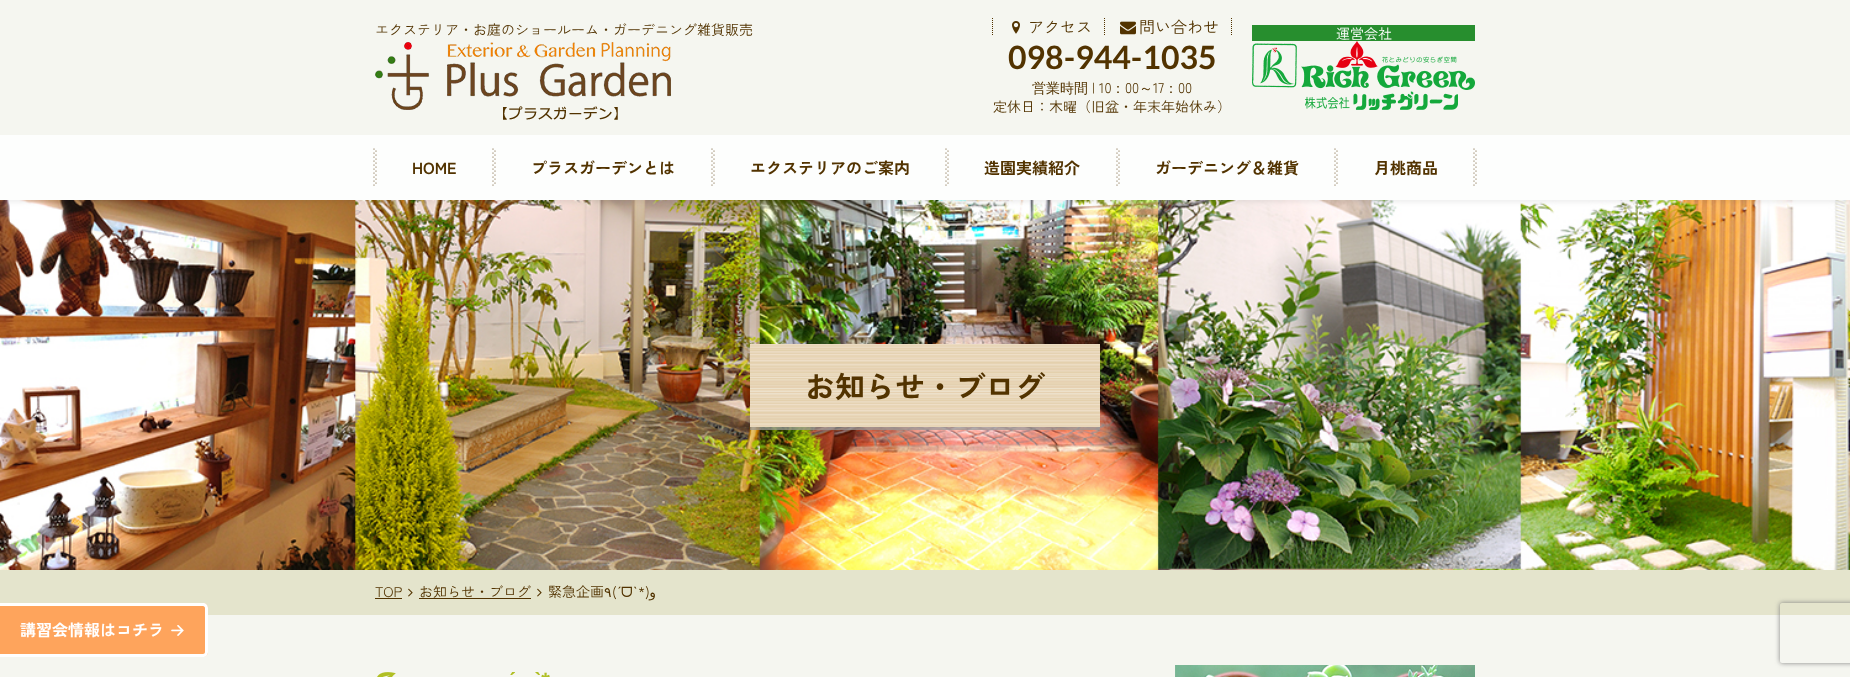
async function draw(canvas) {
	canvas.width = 1850;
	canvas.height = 677;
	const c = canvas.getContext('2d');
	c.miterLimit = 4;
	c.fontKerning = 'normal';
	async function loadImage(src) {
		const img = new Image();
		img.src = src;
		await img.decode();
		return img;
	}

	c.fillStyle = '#f5f6f0';
	c.fillRect(0, 0, 1850, 677);
	c.font = '14px Zen Kaku Gothic New';
	c.fillStyle = '#523300';
	c.fillText('エクステリア・お庭のショールーム・ガーデニング雑貨販売', 375, 35);
	c.drawImage(await loadImage('img1.png'), 375, 42, 296, 78);
	c.beginPath();
	c.moveTo(992.5, 18);
	c.lineTo(992.5, 36);
	c.strokeStyle = '#523300';
	c.setLineDash([1, 1]);
	c.stroke();
	c.beginPath();
	c.moveTo(1104.5, 18);
	c.lineTo(1104.5, 36);
	c.stroke();
	c.drawImage(await loadImage('img2.png'), 1012, 21, 8, 13);
	c.font = '16px Zen Kaku Gothic New';
	c.fillText('アクセス', 1028, 33);
	c.beginPath();
	c.moveTo(1231.5, 18);
	c.lineTo(1231.5, 36);
	c.stroke();
	c.drawImage(await loadImage('img3.png'), 1120, 21, 16, 14);
	c.fillText('問い合わせ', 1139, 33);
	c.font = 'bold 32px Lato';
	c.fillText('098-944-1035', 1008, 69);
	c.font = '500 14px WenQuanYi Zen Hei';
	c.fillText('営業時間', 1032, 93);
	c.font = '14px Zen Kaku Gothic New';
	c.fillText('| 10', 1092, 93);
	c.font = '500 14px WenQuanYi Zen Hei';
	c.fillText('：', 1111, 93);
	c.font = '14px Zen Kaku Gothic New';
	c.fillText('00', 1125, 93);
	c.font = '500 14px WenQuanYi Zen Hei';
	c.fillText('～', 1139, 93);
	c.font = '14px Zen Kaku Gothic New';
	c.fillText('17', 1153, 93);
	c.font = '500 14px WenQuanYi Zen Hei';
	c.fillText('：', 1164, 93);
	c.font = '14px Zen Kaku Gothic New';
	c.fillText('00', 1178, 93);
	c.fillText('定休日：木曜（旧盆・年末年始休み）', 993, 112);
	c.fillStyle = '#278e2e';
	c.fillRect(1252, 25, 223, 16);
	c.fillStyle = '#fff';
	c.fillText('運営会社', 1336, 39);
	c.drawImage(await loadImage('img4.png'), 1252, 41, 223, 69);
	c.fillStyle = '#fdfefd';
	c.fillRect(0, 135, 1850, 65);
	c.beginPath();
	c.moveTo(374, 149);
	c.lineTo(374, 185.2);
	c.moveTo(376, 151);
	c.lineTo(376, 183.2);
	c.lineWidth = 1.1;
	c.lineCap = 'round';
	c.setLineDash([0, 4]);
	c.stroke();
	c.font = 'bold 16px Zen Kaku Gothic New';
	c.fillStyle = '#523300';
	c.fillText('HOME', 412, 174);
	c.beginPath();
	c.moveTo(493, 149);
	c.lineTo(493, 185.2);
	c.moveTo(495, 151);
	c.lineTo(495, 183.2);
	c.stroke();
	c.fillText('プラスガーデンとは', 531, 174);
	c.beginPath();
	c.moveTo(712, 149);
	c.lineTo(712, 185.2);
	c.moveTo(714, 151);
	c.lineTo(714, 183.2);
	c.stroke();
	c.fillText('エクステリアのご案内', 750, 174);
	c.beginPath();
	c.moveTo(946, 149);
	c.lineTo(946, 185.2);
	c.moveTo(948, 151);
	c.lineTo(948, 183.2);
	c.stroke();
	c.fillText('造園実績紹介', 984, 174);
	c.beginPath();
	c.moveTo(1117, 149);
	c.lineTo(1117, 185.2);
	c.moveTo(1119, 151);
	c.lineTo(1119, 183.2);
	c.stroke();
	c.fillText('ガーデニング＆雑貨', 1155, 174);
	c.beginPath();
	c.moveTo(1335, 149);
	c.lineTo(1335, 185.2);
	c.moveTo(1337, 151);
	c.lineTo(1337, 183.2);
	c.stroke();
	c.fillText('月桃商品', 1374, 174);
	c.beginPath();
	c.moveTo(1474, 149);
	c.lineTo(1474, 185.2);
	c.moveTo(1476, 151);
	c.lineTo(1476, 183.2);
	c.stroke();
	c.fillStyle = '#e4e4cc';
	c.fillRect(0, 570, 1850, 45);
	c.fillStyle = '#fea45c';
	c.beginPath();
	c.roundRect(0, 603, 208, 54, [0, 5, 5, 0]);
	c.fill();
	c.fillStyle = '#fff';
	c.beginPath();
	c.moveTo(0, 603);
	c.lineTo(203, 603);
	c.bezierCurveTo(206, 603, 208, 605, 208, 608);
	c.lineTo(208, 652);
	c.bezierCurveTo(208, 655, 206, 657, 203, 657);
	c.lineTo(0, 657);
	c.closePath();
	c.moveTo(0, 606);
	c.lineTo(203, 606);
	c.bezierCurveTo(204, 606, 205, 607, 205, 608);
	c.lineTo(205, 652);
	c.bezierCurveTo(205, 653, 204, 654, 203, 654);
	c.lineTo(0, 654);
	c.closePath();
	c.fill('evenodd');
	c.fillText('講習会情報はコチラ', 20, 636);
	c.drawImage(await loadImage('img5.png'), 171, 625, 13, 11);
	c.drawImage(await loadImage('img6.png'), 0, 200, 1850, 370);
	c.fillStyle = '#999999bf';
	c.fillRect(750, 427, 350, 3);
	c.drawImage(await loadImage('img7.png'), 750, 344, 350, 83);
	c.font = 'bold 30px Zen Kaku Gothic New';
	c.fillStyle = '#523300';
	c.fillText('お知らせ・ブログ', 805, 398);
	c.font = '14px Zen Kaku Gothic New';
	c.fillText('TOP', 375, 597);
	c.fillRect(375, 598, 27, 1);
	c.drawImage(await loadImage('img8.png'), 408, 588, 5, 9);
	c.fillText('お知らせ・ブログ', 419, 597);
	c.fillRect(419, 598, 112, 1);
	c.drawImage(await loadImage('img8.png'), 537, 588, 5, 9);
	c.fillText('緊急企画', 548, 597);
	c.font = '14px DejaVu Sans';
	c.fillText('٩', 604, 597);
	c.font = '14px Zen Kaku Gothic New';
	c.fillText('(', 612, 597);
	c.font = '14px Liberation Sans';
	c.fillText('ˊ', 617, 597);
	c.font = '14px FreeSans';
	c.fillText('ᗜ', 621, 597);
	c.font = '14px Liberation Sans';
	c.fillText('ˋ', 633, 597);
	c.font = '14px Zen Kaku Gothic New';
	c.fillText('*)', 638, 597);
	c.direction = 'rtl';
	c.font = '14px DejaVu Sans';
	c.fillText('و', 656, 597);
	c.drawImage(await loadImage('img9.png'), 377, 672, 19, 5);
	c.direction = 'ltr';
	c.font = 'bold 22px Liberation Sans';
	c.fillStyle = '#b0bf24';
	c.fillText('ˊ', 509, 688);
	c.fillText('ˋ*', 534, 688);
	c.drawImage(await loadImage('img10.png'), 1175, 665, 300, 12);
	c.save();
	c.beginPath();
	c.moveTo(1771, 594);
	c.lineTo(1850, 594);
	c.lineTo(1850, 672);
	c.lineTo(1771, 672);
	c.closePath();
	c.moveTo(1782, 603);
	c.lineTo(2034, 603);
	c.bezierCurveTo(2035, 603, 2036, 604, 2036, 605);
	c.lineTo(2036, 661);
	c.bezierCurveTo(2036, 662, 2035, 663, 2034, 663);
	c.lineTo(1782, 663);
	c.bezierCurveTo(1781, 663, 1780, 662, 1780, 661);
	c.lineTo(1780, 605);
	c.bezierCurveTo(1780, 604, 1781, 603, 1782, 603);
	c.closePath();
	c.clip('evenodd');
	c.fillStyle = '#808080';
	c.filter = 'blur(2.5px)';
	c.beginPath();
	c.roundRect(1780, 603, 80, 60, 2);
	c.fill();
	c.filter = 'none';
	c.restore();
}

draw(document.querySelector('canvas'));
